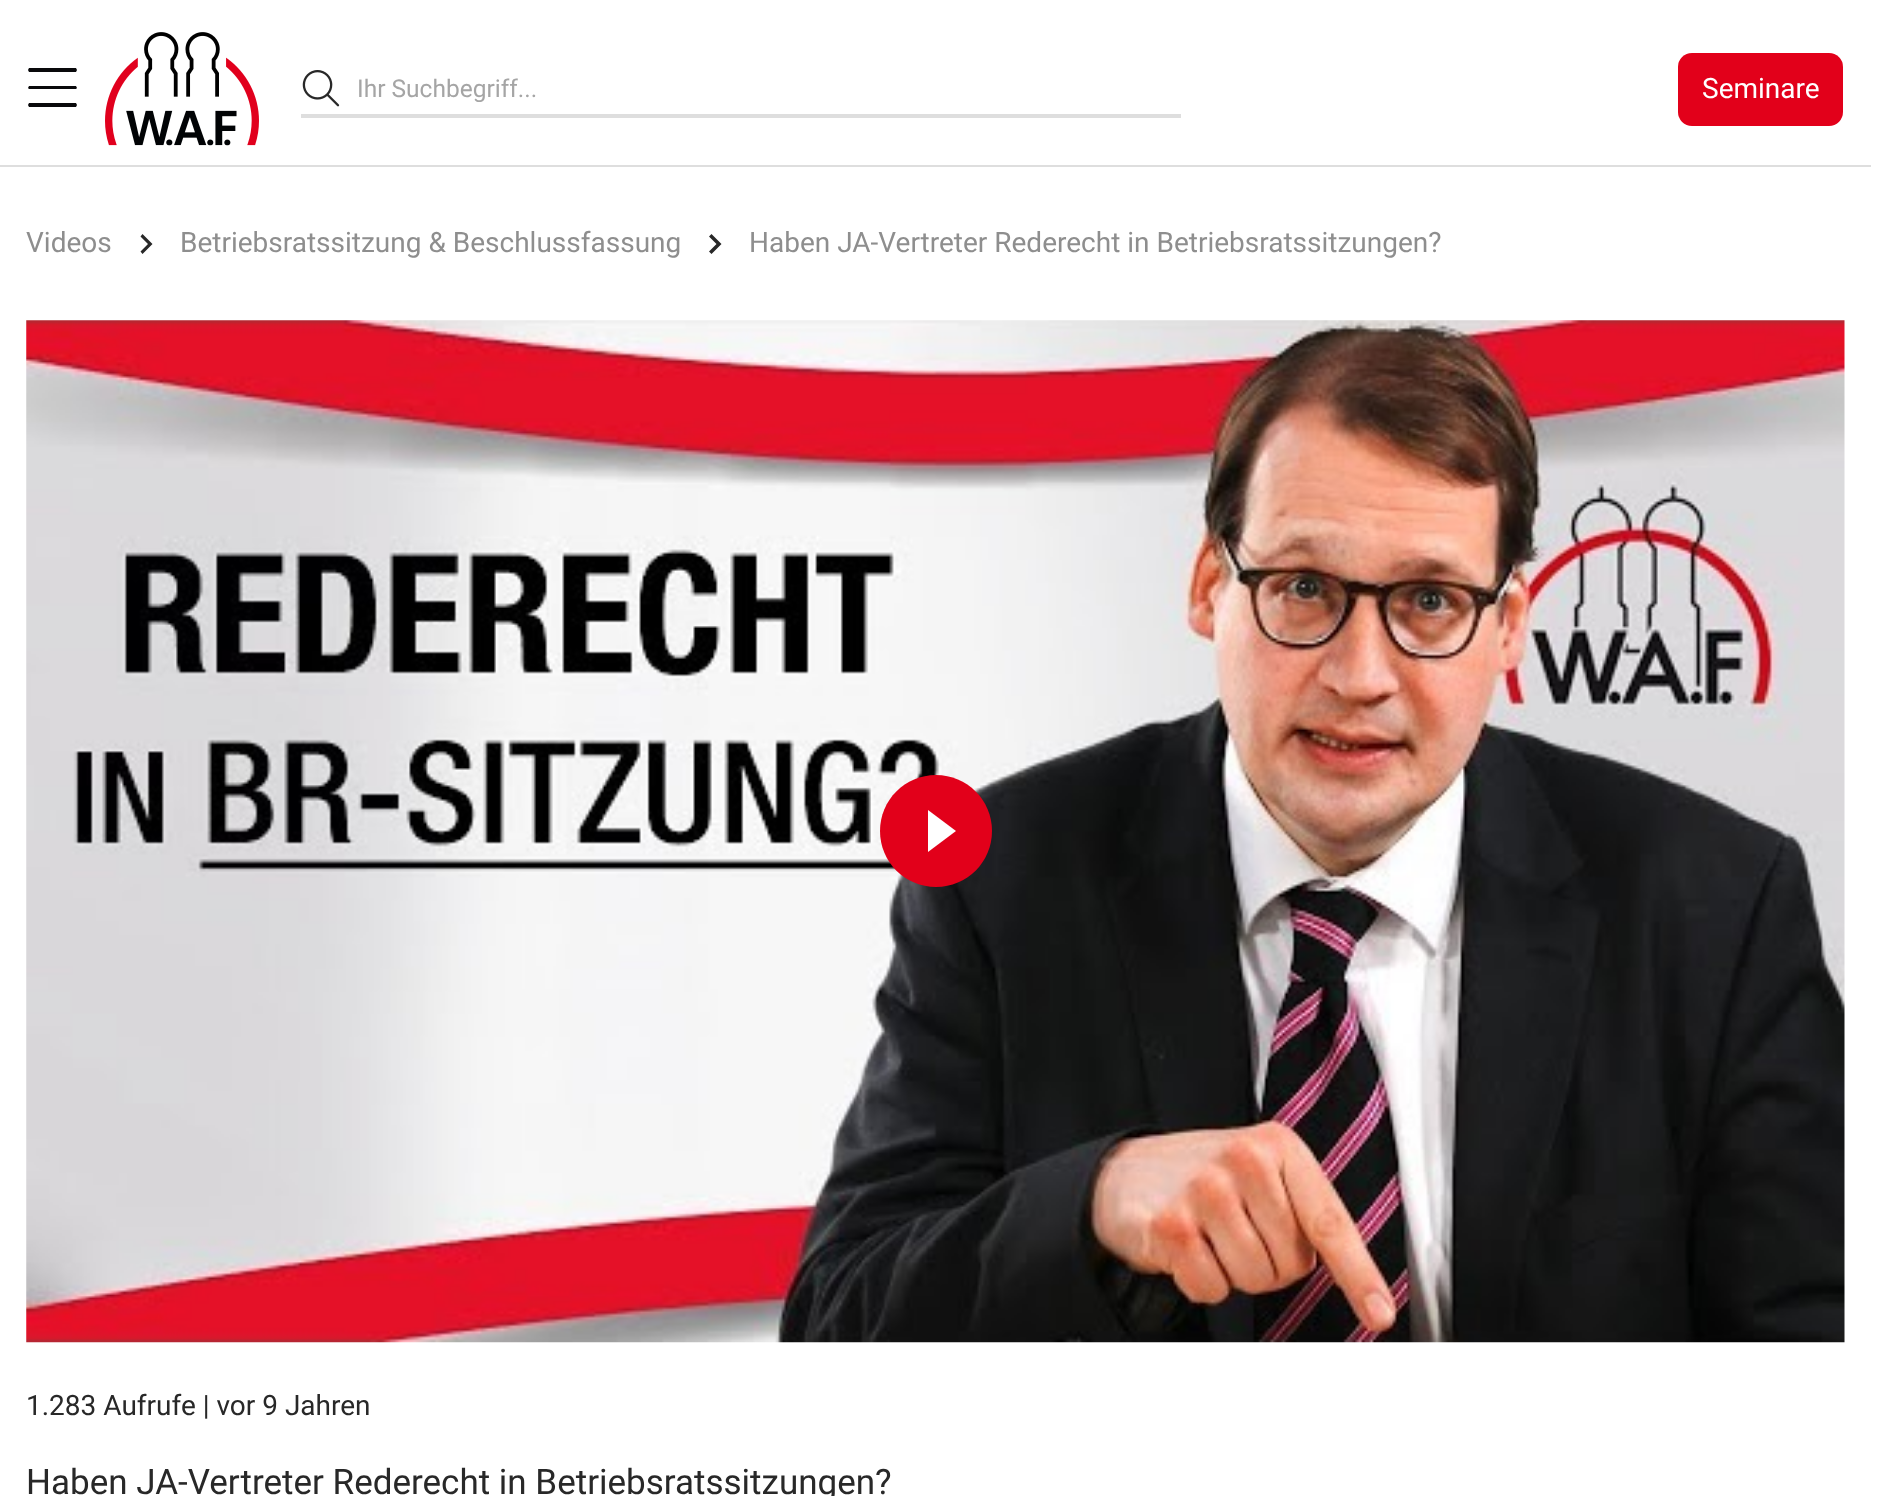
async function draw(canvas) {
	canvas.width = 1897;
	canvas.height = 1496;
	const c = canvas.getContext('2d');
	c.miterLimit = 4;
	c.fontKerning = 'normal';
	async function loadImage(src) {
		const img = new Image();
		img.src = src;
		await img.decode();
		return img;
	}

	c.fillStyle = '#fff';
	c.fillRect(0, 0, 1897, 1496);
	c.fillStyle = '#09090b';
	c.beginPath();
	c.moveTo(28, 70);
	c.lineTo(29, 68);
	c.lineTo(76, 68);
	c.lineTo(77, 70);
	c.lineTo(76, 72);
	c.lineTo(29, 72);
	c.closePath();
	c.moveTo(28, 88);
	c.lineTo(29, 86);
	c.lineTo(76, 86);
	c.lineTo(77, 88);
	c.lineTo(76, 89);
	c.lineTo(29, 89);
	c.closePath();
	c.moveTo(77, 105);
	c.lineTo(76, 107);
	c.lineTo(29, 107);
	c.lineTo(28, 105);
	c.lineTo(29, 103);
	c.lineTo(76, 103);
	c.closePath();
	c.fill();
	c.drawImage(await loadImage('img1.png'), 105, 32, 154, 114);
	c.drawImage(await loadImage('img2.png'), 302, 70, 38, 37);
	c.font = '24.5px Roboto';
	c.fillStyle = '#a5a5a5';
	c.fillText('Ihr Suchbegriff...', 357, 97);
	c.fillStyle = '#dedede';
	c.fillRect(301, 114, 880, 4);
	c.fillStyle = '#e2001a';
	c.beginPath();
	c.roundRect(1678, 53, 165, 73, 14);
	c.fill();
	c.font = '28px Roboto';
	c.fillStyle = '#fff';
	c.fillText('Seminare', 1702, 98);
	c.fillStyle = '#dedede';
	c.fillRect(0, 165, 1871, 2);
	c.fillStyle = '#8e8e8e';
	c.fillText('Videos', 26, 252);
	c.fillStyle = '#282828';
	c.beginPath();
	c.moveTo(142.5, 234);
	c.lineTo(140.5, 236.5);
	c.lineTo(148, 244);
	c.lineTo(140.5, 251.5);
	c.lineTo(142.5, 254);
	c.lineTo(152.5, 244);
	c.closePath();
	c.fill();
	c.fillStyle = '#8e8e8e';
	c.fillText('Betriebsratssitzung & Beschlussfassung', 180, 252);
	c.fillStyle = '#282828';
	c.beginPath();
	c.moveTo(711.5, 234);
	c.lineTo(709, 236.5);
	c.lineTo(716.5, 244);
	c.lineTo(709, 251.5);
	c.lineTo(711.5, 254);
	c.lineTo(721.5, 244);
	c.closePath();
	c.fill();
	c.fillStyle = '#8e8e8e';
	c.fillText('Haben JA-Vertreter Rederecht in Betriebsratssitzungen?', 749, 252);
	c.drawImage(await loadImage('img3.png'), 26, 320, 1819, 1023);
	c.fillStyle = '#e2001a';
	c.beginPath();
	c.moveTo(936, 887);
	c.bezierCurveTo(967, 887, 992, 862, 992, 831);
	c.bezierCurveTo(992, 800, 967, 775, 936, 775);
	c.bezierCurveTo(905, 775, 880, 800, 880, 831);
	c.bezierCurveTo(880, 862, 905, 887, 936, 887);
	c.closePath();
	c.fill();
	c.fillStyle = '#fff';
	c.beginPath();
	c.moveTo(956, 831);
	c.lineTo(928, 852);
	c.lineTo(928, 810);
	c.closePath();
	c.fill();
	c.fillStyle = '#282828';
	c.fillText('1.283 Aufrufe | vor 9 Jahren', 26, 1415);
	c.font = '35px Roboto';
	c.fillText('Haben JA-Vertreter Rederecht in Betriebsratssitzungen?', 26, 1494);
}

draw(document.querySelector('canvas'));
